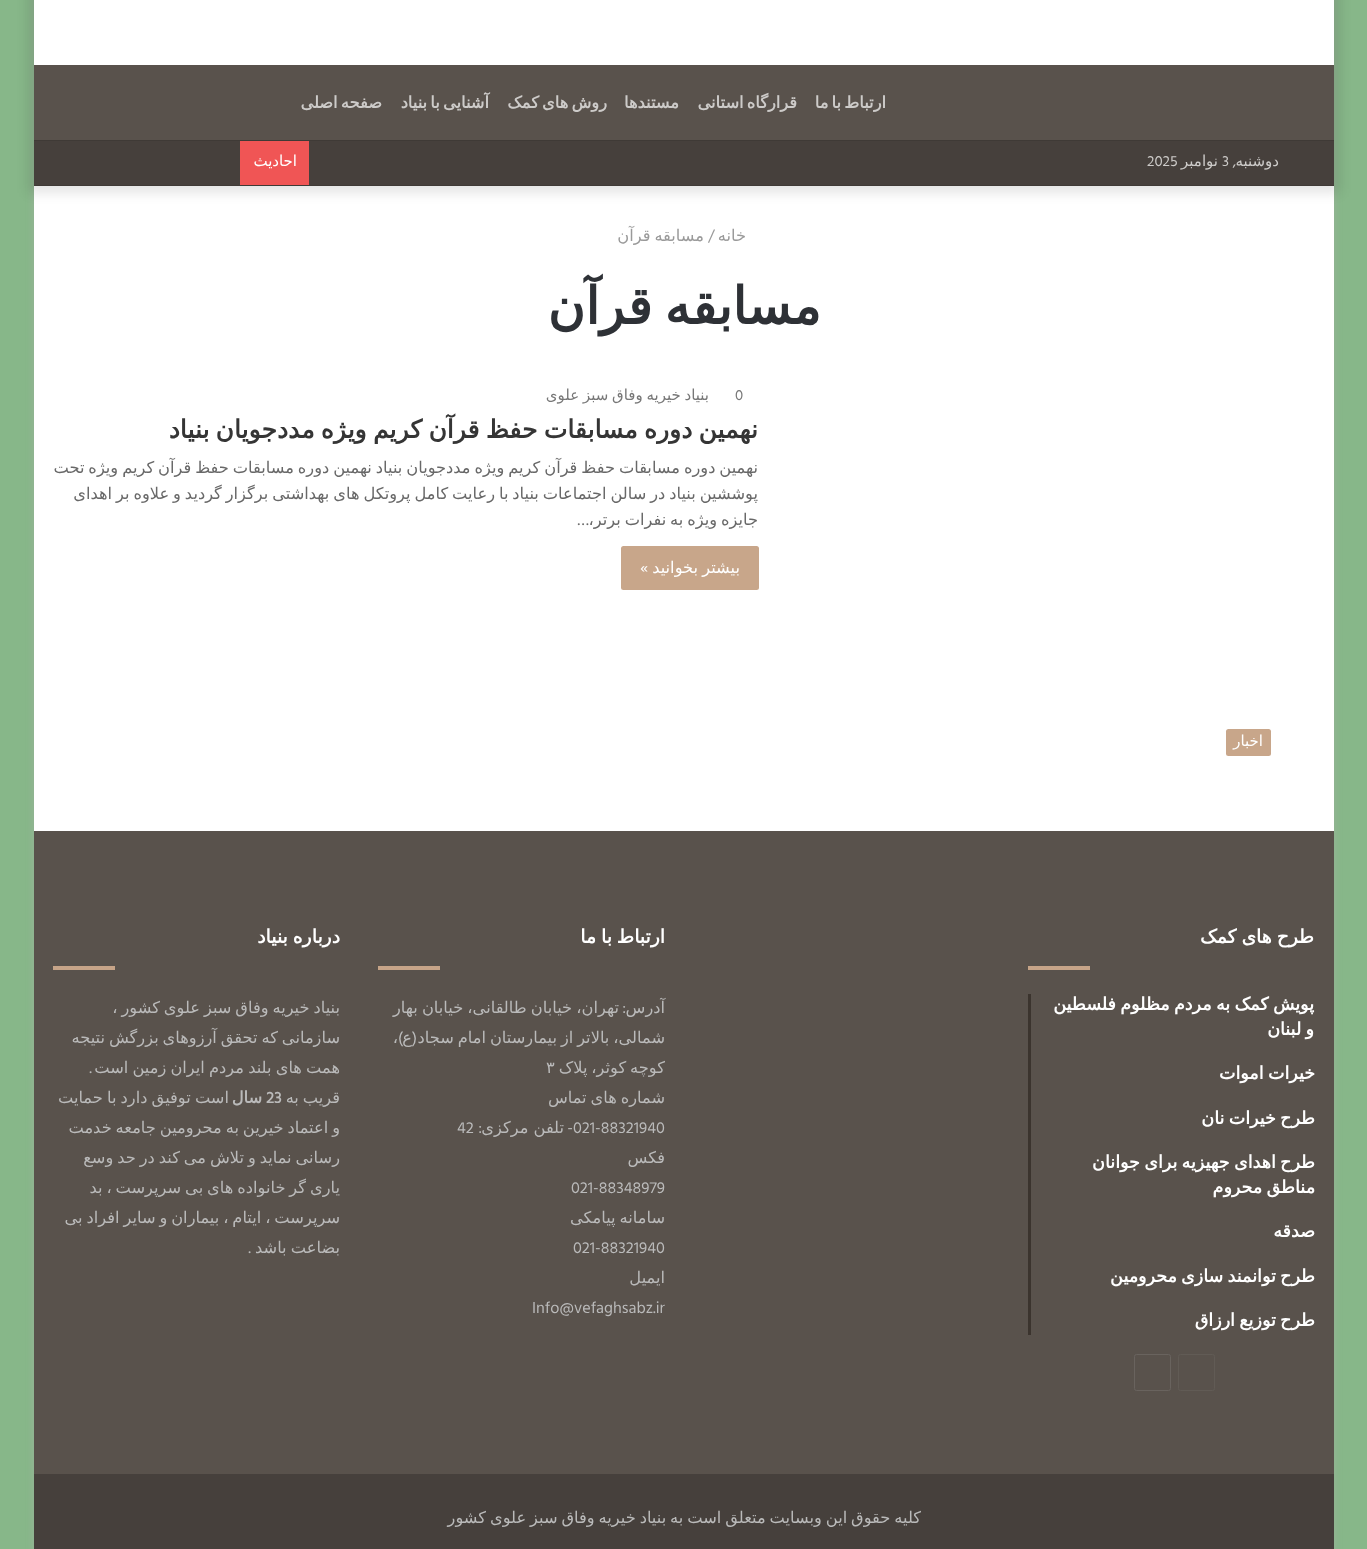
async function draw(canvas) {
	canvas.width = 1367;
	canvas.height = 1549;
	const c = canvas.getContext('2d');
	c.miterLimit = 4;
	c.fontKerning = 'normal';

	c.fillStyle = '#87b789';
	c.fillRect(0, 0, 1367, 1549);
	c.fillStyle = '#ababab80';
	c.filter = 'blur(4.5px)';
	c.beginPath();
	c.rect(34, -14, 1300, 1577);
	c.fill();
	c.filter = 'none';
	c.fillStyle = '#fff';
	c.fillRect(34, 186, 1300, 645);
	c.fillStyle = '#0000001a';
	c.filter = 'blur(6px)';
	c.beginPath();
	c.rect(28, -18, 1312, 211);
	c.fill();
	c.filter = 'none';
	c.fillStyle = '#fff';
	c.fillRect(34, 0, 1300, 65);
	c.fillStyle = '#59524c';
	c.fillRect(34, 65, 1300, 75);
	c.wordSpacing = '-2px';
	c.direction = 'rtl';
	c.font = 'bold 16.25px DejaVu Sans';
	c.fillStyle = '#cdcbc9';
	c.fillText('ارتباط با ما', 886, 108);
	c.fillText('قرارگاه استانی', 797, 108);
	c.wordSpacing = '0px';
	c.fillText('مستندها', 679, 108);
	c.wordSpacing = '-2px';
	for (const [text, x, y] of [
		['روش های کمک', 607, 108],
		['آشنایی با بنیاد', 489, 108],
		['صفحه اصلی', 382, 108],
	]) {
		c.fillText(text, x, y);
	}
	for (const [x, y, w, h, color] of [
		[34, 141, 1300, 44, '#46403c'],
		[34, 140, 1300, 1, '#3f3a36'],
		[34, 185, 1300, 1, '#3f3a36'],
	]) {
		c.fillStyle = color;
		c.fillRect(x, y, w, h);
	}
	c.wordSpacing = '0px';
	c.font = '15px DejaVu Sans';
	c.fillStyle = '#cdcbc9';
	c.fillText('دوشنبه', 1279, 166);
	c.font = '15px Hind';
	c.fillText(',', 1236, 166);
	c.direction = 'ltr';
	c.fillText('3', 1222, 166);
	c.direction = 'rtl';
	c.font = '15px DejaVu Sans';
	c.fillText('نوامبر', 1218, 166);
	c.direction = 'ltr';
	c.font = '15px Hind';
	c.fillText('2025', 1147, 166);
	c.fillStyle = '#f05555';
	c.fillRect(240, 141, 69, 44);
	c.direction = 'rtl';
	c.font = '15px DejaVu Sans';
	c.fillStyle = '#fff';
	c.fillText('احادیث', 297, 166);
	c.font = '16.25px DejaVu Sans';
	c.fillStyle = '#9a9a9a';
	c.fillText('خانه', 746, 241);
	c.direction = 'ltr';
	c.font = '16.25px Hind';
	c.fillText('/', 708, 241);
	c.wordSpacing = '-1.25px';
	c.direction = 'rtl';
	c.font = '16.25px DejaVu Sans';
	c.fillText('مسابقه قرآن', 704, 241);
	c.wordSpacing = '-4px';
	c.font = 'bold 51.25px DejaVu Sans';
	c.fillStyle = '#2e3136';
	c.fillText('مسابقه قرآن', 821, 324);
	c.wordSpacing = '0px';
	c.direction = 'ltr';
	c.font = '15px Hind';
	c.fillStyle = '#777';
	c.fillText('0', 735, 400);
	c.wordSpacing = '-1px';
	c.direction = 'rtl';
	c.font = '15px DejaVu Sans';
	c.fillText('بنیاد خیریه وفاق سبز علوی', 709, 400);
	c.wordSpacing = '-1.75px';
	c.font = 'bold 25px DejaVu Sans';
	c.fillStyle = '#353535';
	c.fillText('نهمین دوره مسابقات حفظ قرآن کریم ویژه مددجویان بنیاد', 758, 438);
	c.wordSpacing = '-1.25px';
	c.font = '16.25px DejaVu Sans';
	c.fillStyle = '#686868';
	for (const [text, x, y] of [
		['نهمین دوره مسابقات حفظ قرآن کریم ویژه مددجویان بنیاد نهمین دوره مسابقات حفظ قرآن کریم ویژه تحت', 758, 473],
		['پوششین بنیاد در سالن اجتماعات بنیاد با رعایت کامل پروتکل های بهداشتی برگزار گردید و علاوه بر اهدای', 758, 499],
		['جایزه ویژه به نفرات برتر،', 758, 525],
	]) {
		c.fillText(text, x, y);
	}
	c.wordSpacing = '0px';
	c.font = '16.25px Hind';
	c.fillText('…', 589, 525);
	c.fillStyle = '#c8a68a';
	c.beginPath();
	c.roundRect(621, 546, 138, 44, 2.5);
	c.fill();
	c.wordSpacing = '-1px';
	c.font = '16.25px DejaVu Sans';
	c.fillStyle = '#fff';
	c.fillText('بیشتر بخوانید', 740, 573);
	c.wordSpacing = '0px';
	c.font = '16.25px Hind';
	c.fillText('»', 648, 573);
	c.fillStyle = '#c8a68a';
	c.beginPath();
	c.roundRect(1226, 729, 45, 27, 2.5);
	c.fill();
	c.font = '15px DejaVu Sans';
	c.fillStyle = '#fff';
	c.fillText('اخبار', 1263, 746);
	c.fillStyle = '#59524c';
	c.fillRect(34, 831, 1300, 643);
	c.wordSpacing = '-1px';
	c.font = 'bold 18.75px DejaVu Sans';
	c.fillStyle = '#fff';
	c.fillText('طرح های کمک', 1314, 943);
	c.fillStyle = '#c6a488';
	c.fillRect(1028, 966, 62, 4);
	c.wordSpacing = '-1.25px';
	c.font = 'bold 17.5px DejaVu Sans';
	c.fillStyle = '#fff';
	c.fillText('پویش کمک به مردم مظلوم فلسطین', 1314, 1010);
	c.fillText('و لبنان', 1314, 1035);
	c.fillStyle = '#3b342e';
	c.fillRect(1028, 994, 3, 341);
	c.fillStyle = '#fff';
	for (const [text, x, y] of [
		['خیرات اموات', 1315, 1079],
		['طرح خیرات نان', 1315, 1124],
		['طرح اهدای جهیزیه برای جوانان', 1315, 1168],
		['مناطق محروم', 1315, 1193],
	]) {
		c.fillText(text, x, y);
	}
	c.wordSpacing = '0px';
	c.fillText('صدقه', 1315, 1237);
	c.wordSpacing = '-1.25px';
	c.fillText('طرح توانمند سازی محرومین', 1315, 1282);
	c.fillText('طرح توزیع ارزاق', 1315, 1326);
	c.beginPath();
	c.roundRect(1178.5, 1354.5, 36, 36, 2);
	c.strokeStyle = '#615b55';
	c.stroke();
	c.beginPath();
	c.roundRect(1134.5, 1354.5, 36, 36, 2);
	c.strokeStyle = '#69635e';
	c.stroke();
	c.wordSpacing = '-1px';
	c.font = 'bold 18.75px DejaVu Sans';
	c.fillText('ارتباط با ما', 665, 943);
	c.fillStyle = '#c6a488';
	c.fillRect(378, 966, 62, 4);
	c.wordSpacing = '0px';
	c.font = '16.25px DejaVu Sans';
	c.fillStyle = '#bababa';
	c.fillText('آدرس', 665, 1013);
	c.font = '16.25px Hind';
	c.fillText(':', 626, 1013);
	c.wordSpacing = '-1px';
	c.font = '16.25px DejaVu Sans';
	c.fillText('تهران، خیابان طالقانی، خیابان بهار', 619, 1013);
	c.wordSpacing = '-1.25px';
	c.fillText('شمالی، بالاتر از بیمارستان امام سجاد', 665, 1043);
	c.wordSpacing = '0px';
	c.font = '16.25px Hind';
	c.fillText('(', 417, 1043);
	c.font = '16.25px DejaVu Sans';
	c.fillText('ع', 412, 1043);
	c.font = '16.25px Hind';
	c.fillText(')', 403, 1043);
	c.font = '16.25px DejaVu Sans';
	c.fillText('،', 398, 1043);
	c.wordSpacing = '-1.25px';
	c.fillText('کوچه کوثر، پلاک', 665, 1073);
	c.wordSpacing = '0px';
	c.direction = 'ltr';
	c.fillText('۳', 546, 1073);
	c.wordSpacing = '-1.25px';
	c.direction = 'rtl';
	c.fillText('شماره های تماس', 665, 1103);
	c.wordSpacing = '0px';
	c.direction = 'ltr';
	c.font = '16.25px Hind';
	c.fillText('021-88321940', 573, 1133);
	c.direction = 'rtl';
	c.fillText('-', 573, 1133);
	c.font = '16.25px DejaVu Sans';
	c.fillText('تلفن مرکزی', 564, 1133);
	c.font = '16.25px Hind';
	c.fillText(':', 482, 1133);
	c.direction = 'ltr';
	c.fillText('42', 457, 1133);
	c.direction = 'rtl';
	c.font = '16.25px DejaVu Sans';
	c.fillText('فکس', 665, 1163);
	c.direction = 'ltr';
	c.font = '16.25px Hind';
	c.fillText('021-88348979', 571, 1193);
	c.wordSpacing = '-1.25px';
	c.direction = 'rtl';
	c.font = '16.25px DejaVu Sans';
	c.fillText('سامانه پیامکی', 665, 1223);
	c.wordSpacing = '0px';
	c.direction = 'ltr';
	c.font = '16.25px Hind';
	c.fillText('021-88321940', 573, 1253);
	c.direction = 'rtl';
	c.font = '16.25px DejaVu Sans';
	c.fillText('ایمیل', 665, 1283);
	c.direction = 'ltr';
	c.font = '16.25px Hind';
	c.fillText('Info@vefaghsabz.ir', 532, 1313);
	c.wordSpacing = '-1px';
	c.direction = 'rtl';
	c.font = 'bold 18.75px DejaVu Sans';
	c.fillStyle = '#fff';
	c.fillText('درباره بنیاد', 340, 943);
	c.fillStyle = '#c6a488';
	c.fillRect(53, 966, 62, 4);
	c.wordSpacing = '-1.25px';
	c.font = '16.25px DejaVu Sans';
	c.fillStyle = '#bababa';
	c.fillText('بنیاد خیریه وفاق سبز علوی کشور ،', 340, 1013);
	c.fillText('سازمانی که تحقق آرزوهای بزرگش نتیجه', 340, 1043);
	c.wordSpacing = '-1px';
	c.fillText('همت های بلند مردم ایران زمین است', 340, 1073);
	c.wordSpacing = '0px';
	c.font = '16.25px Hind';
	c.fillText('.', 92, 1073);
	c.wordSpacing = '-1.25px';
	c.font = '16.25px DejaVu Sans';
	c.fillText('قریب به', 340, 1103);
	c.wordSpacing = '0px';
	c.direction = 'ltr';
	c.font = 'bold 16.25px Hind';
	c.fillText('23', 266, 1103);
	c.direction = 'rtl';
	c.font = 'bold 16.25px DejaVu Sans';
	c.fillText('سال', 262, 1103);
	c.wordSpacing = '-1px';
	c.font = '16.25px DejaVu Sans';
	c.fillText('است توفیق دارد با حمایت', 229, 1103);
	c.wordSpacing = '-1.25px';
	for (const [text, x, y] of [
		['و اعتماد خیرین به محرومین جامعه خدمت', 340, 1133],
		['رسانی نماید و تلاش می کند در حد وسع', 340, 1163],
		['یاری گر خانواده های بی سرپرست ، بد', 340, 1193],
		['سرپرست ، ایتام ، بیماران و سایر افراد بی', 340, 1223],
	]) {
		c.fillText(text, x, y);
	}
	c.wordSpacing = '-1px';
	c.fillText('بضاعت باشد', 340, 1253);
	c.wordSpacing = '0px';
	c.font = '16.25px Hind';
	c.fillText('.', 251, 1253);
	c.fillStyle = '#46403c';
	c.fillRect(34, 1474, 1300, 75);
	c.wordSpacing = '-1.25px';
	c.font = '16.25px DejaVu Sans';
	c.fillStyle = '#bababa';
	c.fillText('کلیه حقوق این وبسایت متعلق است به بنیاد خیریه وفاق سبز علوی کشور', 921, 1523);
}

draw(document.querySelector('canvas'));
